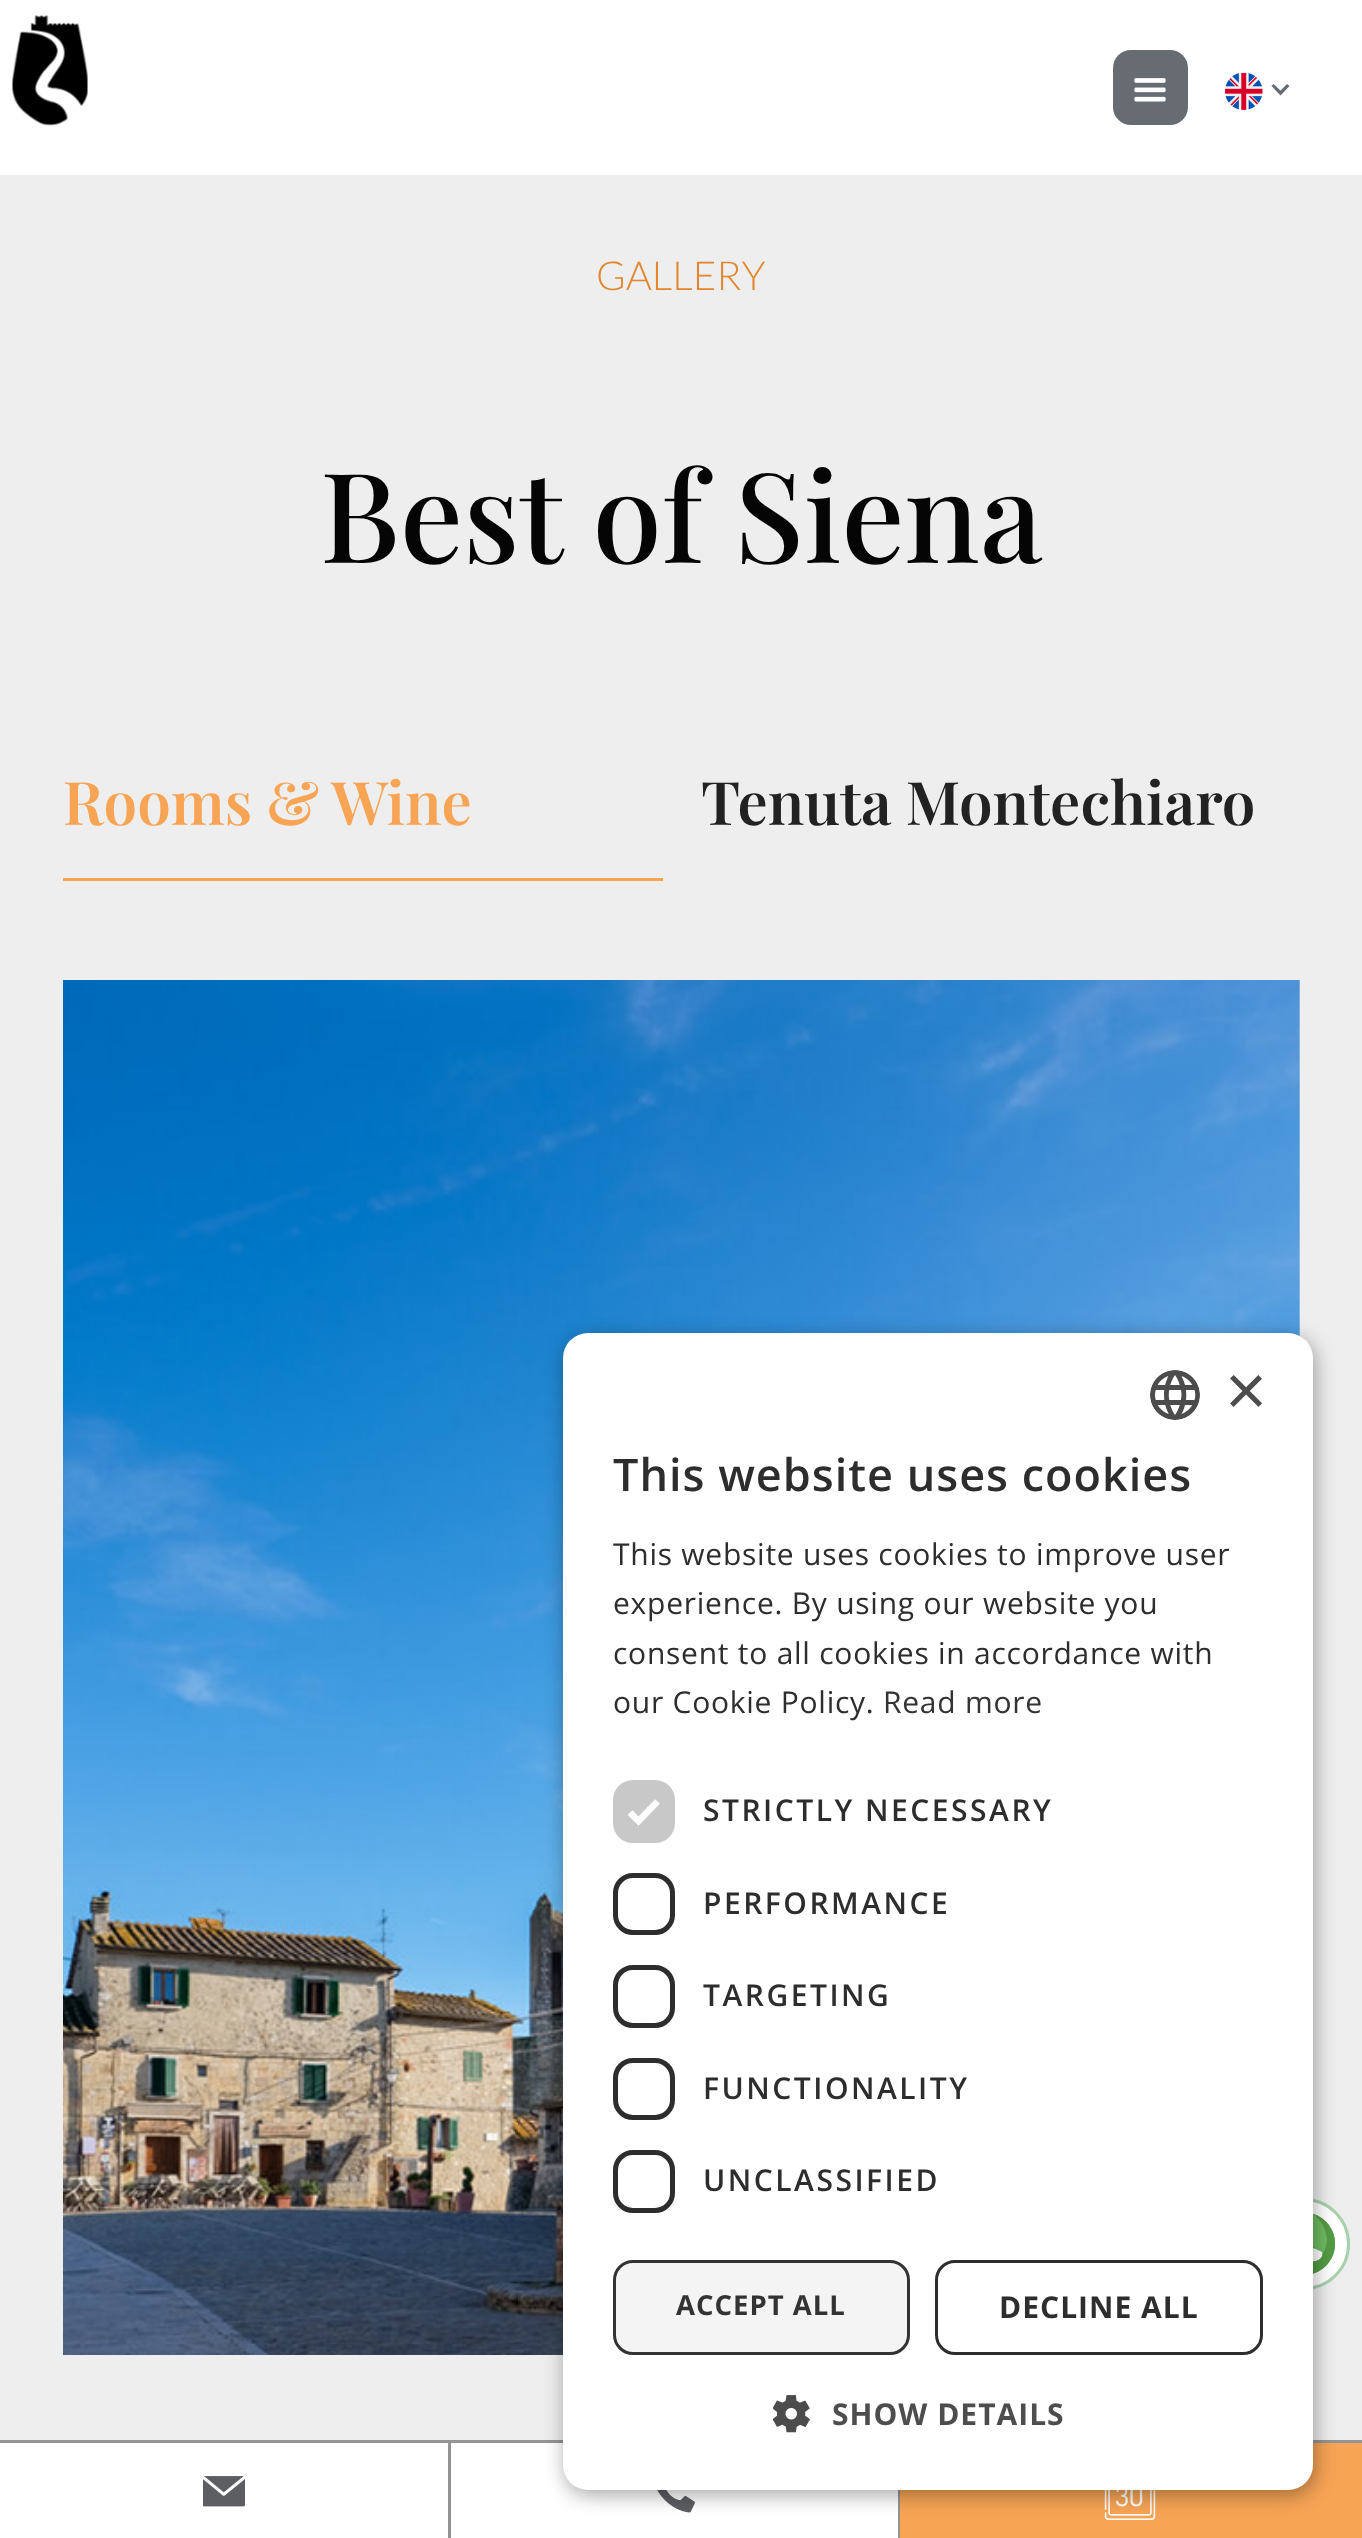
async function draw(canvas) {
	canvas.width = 1362;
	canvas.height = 2538;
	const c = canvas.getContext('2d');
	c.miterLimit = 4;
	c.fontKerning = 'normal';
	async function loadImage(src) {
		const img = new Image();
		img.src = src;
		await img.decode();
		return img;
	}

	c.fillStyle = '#eee';
	c.fillRect(0, 0, 1362, 2538);
	c.fillStyle = '#fff';
	c.fillRect(0, 0, 1362, 175);
	c.drawImage(await loadImage('img2.png'), 12, 16, 76, 109);
	c.drawImage(await loadImage('img1.png'), 12, 15, 76, 111);
	c.fillStyle = '#676c72';
	c.beginPath();
	c.roundRect(1113, 50, 75, 75, 18);
	c.fill();
	c.drawImage(await loadImage('img3.png'), 1134, 78, 32, 24);
	c.drawImage(await loadImage('img4.png'), 1225, 73, 38, 37);
	c.beginPath();
	c.moveTo(1287, 84);
	c.lineTo(1280.5, 90.5);
	c.lineTo(1273.5, 84);
	c.lineTo(1271.5, 86);
	c.lineTo(1280.5, 95.5);
	c.lineTo(1289.5, 86);
	c.closePath();
	c.fill();
	c.font = '300 40px Lato';
	c.fillStyle = '#e2862f';
	c.fillText('GALLERY', 596, 290);
	c.font = '500 125px Playfair Display';
	c.fillStyle = '#050505';
	c.fillText('Best of Siena', 320, 563);
	c.fillStyle = '#f7a455';
	c.fillRect(63, 878, 600, 3);
	c.font = '600 60px Playfair Display';
	c.fillText('Rooms & Wine', 63, 825);
	c.fillStyle = '#222';
	c.fillText('Tenuta Montechiaro', 701, 825);
	c.drawImage(await loadImage('img5.png'), 63, 980, 1237, 1375);
	c.fillStyle = '#fff';
	c.beginPath();
	c.arc(1304, 2244, 46, 0, 2 * Math.PI);
	c.fill();
	c.beginPath();
	c.arc(1304, 2244, 44.5, 0, 2 * Math.PI);
	c.strokeStyle = '#53a15b80';
	c.lineWidth = 3;
	c.stroke();
	c.drawImage(await loadImage('img8.png'), 1313, 2213, 22, 61);
	for (const [x, y, w, h, color] of [
		[0, 2443, 898, 95, '#fff'],
		[0, 2440, 1362, 3, '#939496'],
		[898, 2490, 2, 48, '#939496'],
	]) {
		c.fillStyle = color;
		c.fillRect(x, y, w, h);
	}
	c.drawImage(await loadImage('img10.png'), 657, 2490, 38, 23);
	c.fillStyle = '#f7a455';
	c.fillRect(900, 2443, 462, 95);
	c.drawImage(await loadImage('img11.png'), 1104, 2490, 52, 30);
	c.fillStyle = '#00000059';
	c.filter = 'blur(10px)';
	c.beginPath();
	c.roundRect(565, 1338, 750, 1157, 25);
	c.fill();
	c.filter = 'none';
	c.fillStyle = '#fff';
	c.beginPath();
	c.roundRect(563, 1333, 750, 1157, 25);
	c.fill();
	c.drawImage(await loadImage('img6.png'), 1150, 1370, 50, 50);
	c.font = '72px Liberation Sans';
	c.fillStyle = '#4d4d4d';
	c.fillText('×', 1225, 1415);
	c.letterSpacing = '1px';
	c.font = '600 45px Open Sans';
	c.fillStyle = '#2d2d2d';
	c.fillText('This website uses cookies', 613, 1491);
	c.letterSpacing = '0.75px';
	c.font = '30px Open Sans';
	for (const [text, x, y] of [
		['This website uses cookies to improve user', 613, 1565],
		['experience. By using our website you', 613, 1614],
		['consent to all cookies in accordance with', 613, 1664],
		['our Cookie Policy.', 613, 1713],
	]) {
		c.fillText(text, x, y);
	}
	c.fillStyle = '#333';
	c.fillText('Read more', 883, 1713);
	c.fillStyle = '#c8c8c8';
	c.beginPath();
	c.roundRect(613, 1780, 62, 63, 20);
	c.fill();
	c.beginPath();
	c.moveTo(630, 1812.5);
	c.lineTo(638.5, 1821);
	c.lineTo(657.5, 1801.5);
	c.strokeStyle = '#fff';
	c.lineWidth = 6.6;
	c.stroke();
	c.letterSpacing = '2.5px';
	c.font = '600 30px Open Sans';
	c.fillStyle = '#2d2d2d';
	c.fillText('STRICTLY NECESSARY', 703, 1821);
	c.beginPath();
	c.roundRect(615.5, 1875.5, 57, 57, 17.5);
	c.strokeStyle = '#2d2d2d';
	c.lineWidth = 5;
	c.stroke();
	c.fillText('PERFORMANCE', 703, 1914);
	c.beginPath();
	c.roundRect(615.5, 1967.5, 57, 58, 17.5);
	c.stroke();
	c.fillText('TARGETING', 703, 2006);
	c.beginPath();
	c.roundRect(615.5, 2060.5, 57, 57, 17.5);
	c.stroke();
	c.fillText('FUNCTIONALITY', 703, 2099);
	c.beginPath();
	c.roundRect(615.5, 2152.5, 57, 58, 17.5);
	c.stroke();
	c.fillText('UNCLASSIFIED', 703, 2191);
	c.fillStyle = '#f4f4f4';
	c.beginPath();
	c.roundRect(614.5, 2261.5, 294, 92, 18.5);
	c.fill();
	c.strokeStyle = '#333';
	c.lineWidth = 3;
	c.stroke();
	c.letterSpacing = '1px';
	c.font = 'bold 27.5px Open Sans';
	c.fillStyle = '#333';
	c.fillText('ACCEPT ALL', 676, 2315);
	c.beginPath();
	c.roundRect(936.5, 2261.5, 325, 92, 18.5);
	c.strokeStyle = '#2d2d2d';
	c.stroke();
	c.font = 'bold 30px Open Sans';
	c.fillStyle = '#2d2d2d';
	c.fillText('DECLINE ALL', 999, 2318);
	c.drawImage(await loadImage('img7.png'), 773, 2395, 37, 38);
	c.fillStyle = '#4d4d4d';
	c.fillText('SHOW DETAILS', 832, 2425);
	c.fillStyle = '#939496';
	c.fillRect(448, 2443, 3, 95);
	c.drawImage(await loadImage('img9.png'), 203, 2476, 42, 31);
}

draw(document.querySelector('canvas'));
